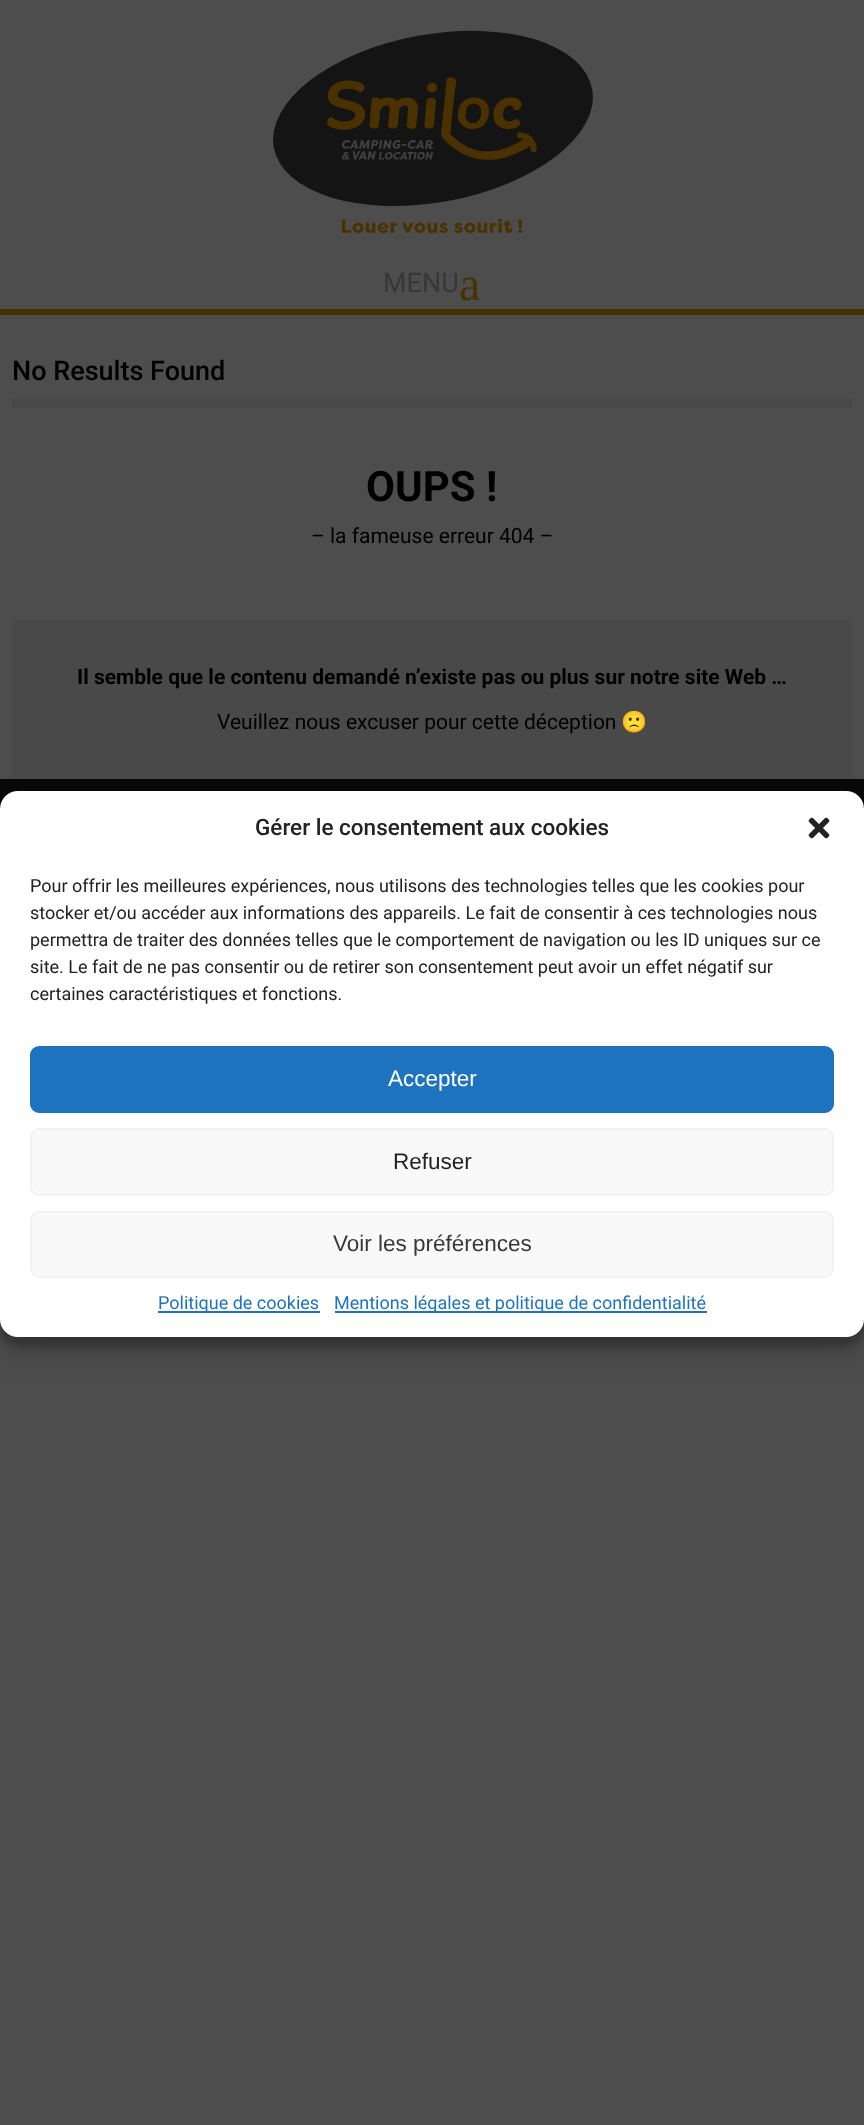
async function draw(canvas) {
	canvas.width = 864;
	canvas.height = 2125;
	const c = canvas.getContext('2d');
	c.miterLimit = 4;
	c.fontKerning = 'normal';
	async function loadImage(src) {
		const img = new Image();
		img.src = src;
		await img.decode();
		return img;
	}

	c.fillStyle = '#4d4d4d';
	c.fillRect(0, 0, 864, 2125);
	c.fillStyle = '#452f00';
	c.fillRect(0, 309, 864, 6);
	c.drawImage(await loadImage('img1.png'), 273, 30, 320, 203);
	c.font = '27px Roboto';
	c.fillStyle = '#373737';
	c.fillText('MENU', 383, 292);
	c.font = '48px Liberation Serif';
	c.fillStyle = '#493100';
	c.fillText('a', 459, 300);
	c.fillStyle = '#484848';
	c.fillRect(12, 399, 840, 9);
	c.font = '500 27px Roboto';
	c.fillStyle = '#000';
	c.fillText('No Results Found', 12, 380);
	c.font = 'bold 42px Roboto';
	c.fillText('OUPS !', 366, 501);
	c.font = '21px Roboto';
	c.fillText('– la fameuse erreur 404 –', 311, 543);
	c.fillStyle = '#494949';
	c.fillRect(12, 620, 840, 159);
	c.font = 'bold 21px Roboto';
	c.fillStyle = '#000';
	c.fillText('Il semble que le contenu demandé n’existe pas ou plus sur notre site Web …', 77, 684);
	c.font = '21px Roboto';
	c.fillText('Veuillez nous excuser pour cette déception', 217, 729);
	c.font = '21px Noto Color Emoji';
	c.fillText('🙁', 621, 729);
	c.fillStyle = '#090909';
	c.fillRect(0, 779, 864, 30);
	c.fillStyle = '#0000003b';
	c.filter = 'blur(4.5px)';
	c.beginPath();
	c.roundRect(0, 800, 864, 546, 18);
	c.fill();
	c.filter = 'none';
	c.fillStyle = '#00000030';
	c.filter = 'blur(15px)';
	c.beginPath();
	c.roundRect(0, 806, 864, 546, 18);
	c.fill();
	c.filter = 'none';
	c.fillStyle = '#fff';
	c.beginPath();
	c.roundRect(0, 791, 864, 546, 18);
	c.fill();
	c.font = '500 22.5px Roboto';
	c.fillStyle = '#222';
	c.fillText('Gérer le consentement aux cookies', 255, 835);
	c.drawImage(await loadImage('img2.png'), 808, 817, 22, 22);
	c.font = '18px Roboto';
	for (const [text, x, y] of [
		['Pour offrir les meilleures expériences, nous utilisons des technologies telles que les cookies pour', 30, 892],
		['stocker et/ou accéder aux informations des appareils. Le fait de consentir à ces technologies nous', 30, 919],
		['permettra de traiter des données telles que le comportement de navigation ou les ID uniques sur ce', 30, 946],
		['site. Le fait de ne pas consentir ou de retirer son consentement peut avoir un effet négatif sur', 30, 973],
		['certaines caractéristiques et fonctions.', 30, 1000],
	]) {
		c.fillText(text, x, y);
	}
	c.fillStyle = '#1e73be';
	c.beginPath();
	c.roundRect(31, 1047, 802, 65, 8);
	c.fill();
	c.strokeStyle = '#1e73be';
	c.lineWidth = 2;
	c.stroke();
	c.font = '22.5px Liberation Sans';
	c.fillStyle = '#fff';
	c.fillText('Accepter', 388, 1086);
	c.fillStyle = '#f9f9f9';
	c.beginPath();
	c.roundRect(31, 1129, 802, 66, 8);
	c.fill();
	c.strokeStyle = '#f2f2f2';
	c.stroke();
	c.fillStyle = '#222';
	c.fillText('Refuser', 393, 1169);
	c.fillStyle = '#f9f9f9';
	c.beginPath();
	c.roundRect(31, 1212, 802, 65, 8);
	c.fill();
	c.stroke();
	c.fillStyle = '#373737';
	c.fillText('Voir les préférences', 333, 1251);
	c.fillStyle = '#1e73be';
	c.fillRect(158, 1311, 162, 2);
	c.font = '18px Roboto';
	c.fillText('Politique de cookies', 158, 1309);
	c.fillRect(335, 1311, 372, 2);
	c.fillText('Mentions légales et politique de confidentialité', 334, 1309);
}

draw(document.querySelector('canvas'));
